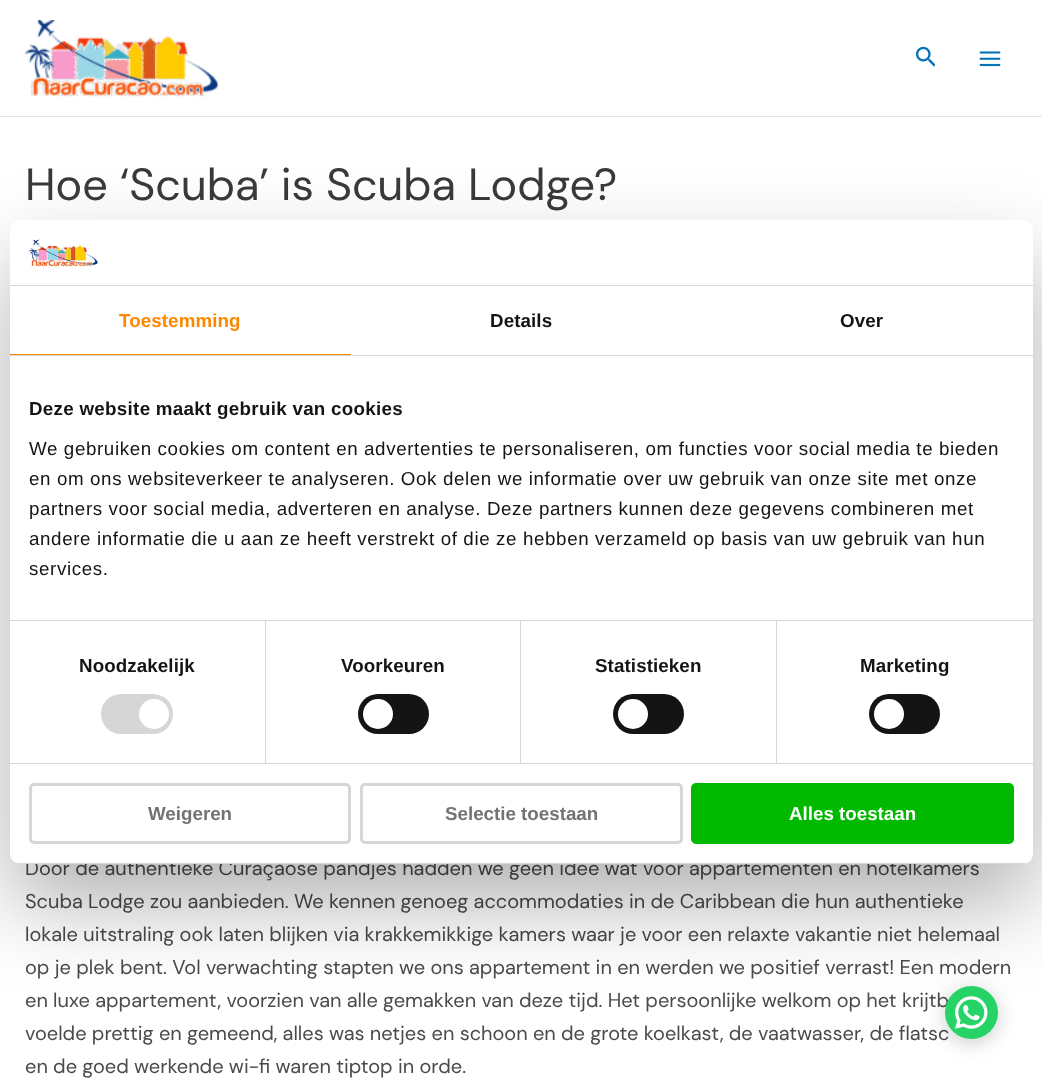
async function draw(canvas) {
	canvas.width = 1042;
	canvas.height = 1083;
	const c = canvas.getContext('2d');
	c.miterLimit = 4;
	c.fontKerning = 'normal';
	async function loadImage(src) {
		const img = new Image();
		img.src = src;
		await img.decode();
		return img;
	}

	c.fillStyle = '#fff';
	c.fillRect(0, 0, 1042, 1083);
	c.fillStyle = '#e5e5e5';
	c.fillRect(0, 116, 1042, 1);
	c.drawImage(await loadImage('img1.png'), 25, 20, 193, 77);
	c.drawImage(await loadImage('img2.png'), 916, 46, 19, 21);
	c.drawImage(await loadImage('img3.png'), 979, 51, 22, 16);
	c.font = '45px DM Sans';
	c.fillStyle = '#3a3a3a';
	c.fillText('Hoe ‘Scuba’ is Scuba Lodge?', 25, 200);
	c.font = '20px DM Sans';
	c.fillStyle = '#4b4b4b';
	for (const [text, x, y] of [
		['Door de authentieke Curaçaose pandjes hadden we geen idee wat voor appartementen en hotelkamers', 25, 875],
		['Scuba Lodge zou aanbieden. We kennen genoeg accommodaties in de Caribbean die hun authentieke', 25, 908],
		['lokale uitstraling ook laten blijken via krakkemikkige kamers waar je voor een relaxte vakantie niet helemaal', 25, 941],
		['op je plek bent. Vol verwachting stapten we ons appartement in en werden we positief verrast! Een modern', 25, 974],
		['en luxe appartement, voorzien van alle gemakken van deze tijd. Het persoonlijke welkom op het krijtb', 25, 1007],
		['voelde prettig en gemeend, alles was netjes en schoon en de grote koelkast, de vaatwasser, de flatsc', 25, 1040],
		['en de goed werkende wi-fi waren tiptop in orde.', 25, 1073],
	]) {
		c.fillText(text, x, y);
	}
	c.fillStyle = '#00000033';
	c.filter = 'blur(9.5px)';
	c.beginPath();
	c.roundRect(945, 990, 53, 53, 26.5);
	c.fill();
	c.filter = 'none';
	c.fillStyle = '#25d366';
	c.beginPath();
	c.arc(971.5, 1012.5, 26.5, 0, 2 * Math.PI);
	c.fill();
	c.drawImage(await loadImage('img5.png'), 955, 996, 33, 33);
	c.fillStyle = '#0000004d';
	c.filter = 'blur(42.5px)';
	c.beginPath();
	c.roundRect(10, 260, 1023, 644, 10);
	c.fill();
	c.filter = 'none';
	c.fillStyle = '#fff';
	c.beginPath();
	c.roundRect(10, 220, 1023, 644, 10);
	c.fill();
	c.fillStyle = '#d6d6d6';
	c.fillRect(10, 285, 1023, 1);
	c.drawImage(await loadImage('img4.png'), 28, 239, 70, 28);
	c.fillRect(10, 355, 1023, 1);
	c.fillStyle = '#fe8700';
	c.fillRect(10, 354, 341, 1);
	c.letterSpacing = '0.1px';
	c.font = 'bold 18.75px Liberation Sans';
	c.fillText('Toestemming', 119, 327);
	c.fillStyle = '#141414';
	c.fillText('Details', 490, 327);
	c.fillText('Over', 840, 327);
	c.fillStyle = '#d6d6d6';
	c.fillRect(10, 620, 1023, 1);
	c.letterSpacing = '0.3px';
	c.fillStyle = '#141414';
	c.fillText('Deze website maakt gebruik van cookies', 29, 415);
	c.letterSpacing = '0.62px';
	c.font = '18.75px Liberation Sans';
	for (const [text, x, y] of [
		['We gebruiken cookies om content en advertenties te personaliseren, om functies voor social media te bieden', 29, 455],
		['en om ons websiteverkeer te analyseren. Ook delen we informatie over uw gebruik van onze site met onze', 29, 485],
		['partners voor social media, adverteren en analyse. Deze partners kunnen deze gegevens combineren met', 29, 515],
		['andere informatie die u aan ze heeft verstrekt of die ze hebben verzameld op basis van uw gebruik van hun', 29, 545],
		['services.', 29, 575],
	]) {
		c.fillText(text, x, y);
	}
	c.fillStyle = '#d6d6d6';
	c.fillRect(10, 763, 1023, 1);
	c.fillRect(265, 621, 1, 142);
	c.letterSpacing = '0.1px';
	c.font = 'bold 18.75px Liberation Sans';
	c.fillStyle = '#141414';
	c.fillText('Noodzakelijk', 79, 672);
	c.fillStyle = '#d6d6d6';
	c.beginPath();
	c.roundRect(101, 694, 72, 40, 20);
	c.fill();
	c.fillStyle = '#fff';
	c.beginPath();
	c.arc(154, 714, 15, 0, 2 * Math.PI);
	c.fill();
	c.fillStyle = '#d6d6d6';
	c.fillRect(520, 621, 1, 142);
	c.fillStyle = '#141414';
	c.fillText('Voorkeuren', 341, 672);
	c.beginPath();
	c.roundRect(358, 694, 71, 40, 20);
	c.fill();
	c.fillStyle = '#fff';
	c.beginPath();
	c.arc(378, 714, 15, 0, 2 * Math.PI);
	c.fill();
	c.fillStyle = '#d6d6d6';
	c.fillRect(776, 621, 1, 142);
	c.fillStyle = '#141414';
	c.fillText('Statistieken', 595, 672);
	c.beginPath();
	c.roundRect(613, 694, 71, 40, 20);
	c.fill();
	c.fillStyle = '#fff';
	c.beginPath();
	c.arc(633, 714, 15, 0, 2 * Math.PI);
	c.fill();
	c.fillStyle = '#141414';
	c.fillText('Marketing', 860, 672);
	c.beginPath();
	c.roundRect(869, 694, 71, 40, 20);
	c.fill();
	c.fillStyle = '#fff';
	c.beginPath();
	c.arc(889, 714, 15, 0, 2 * Math.PI);
	c.fill();
	c.save();
	c.beginPath();
	c.roundRect(10, 220, 1023, 644, 10);
	c.clip();
	c.fillStyle = '#d6d6d6';
	c.fillRect(10, 863, 1023, 1);
	c.restore();
	c.beginPath();
	c.roundRect(30.5, 784.5, 319, 58, 3.5);
	c.strokeStyle = '#d6d6d6';
	c.lineWidth = 3;
	c.stroke();
	c.letterSpacing = '0px';
	c.fillStyle = '#737373';
	c.fillText('Weigeren', 148, 820);
	c.beginPath();
	c.roundRect(361.5, 784.5, 320, 58, 3.5);
	c.stroke();
	c.fillText('Selectie toestaan', 445, 820);
	c.fillStyle = '#00b900';
	c.beginPath();
	c.roundRect(692.5, 784.5, 320, 58, 3.5);
	c.fill();
	c.strokeStyle = '#00b900';
	c.stroke();
	c.fillStyle = '#fff';
	c.fillText('Alles toestaan', 789, 820);
}

draw(document.querySelector('canvas'));
